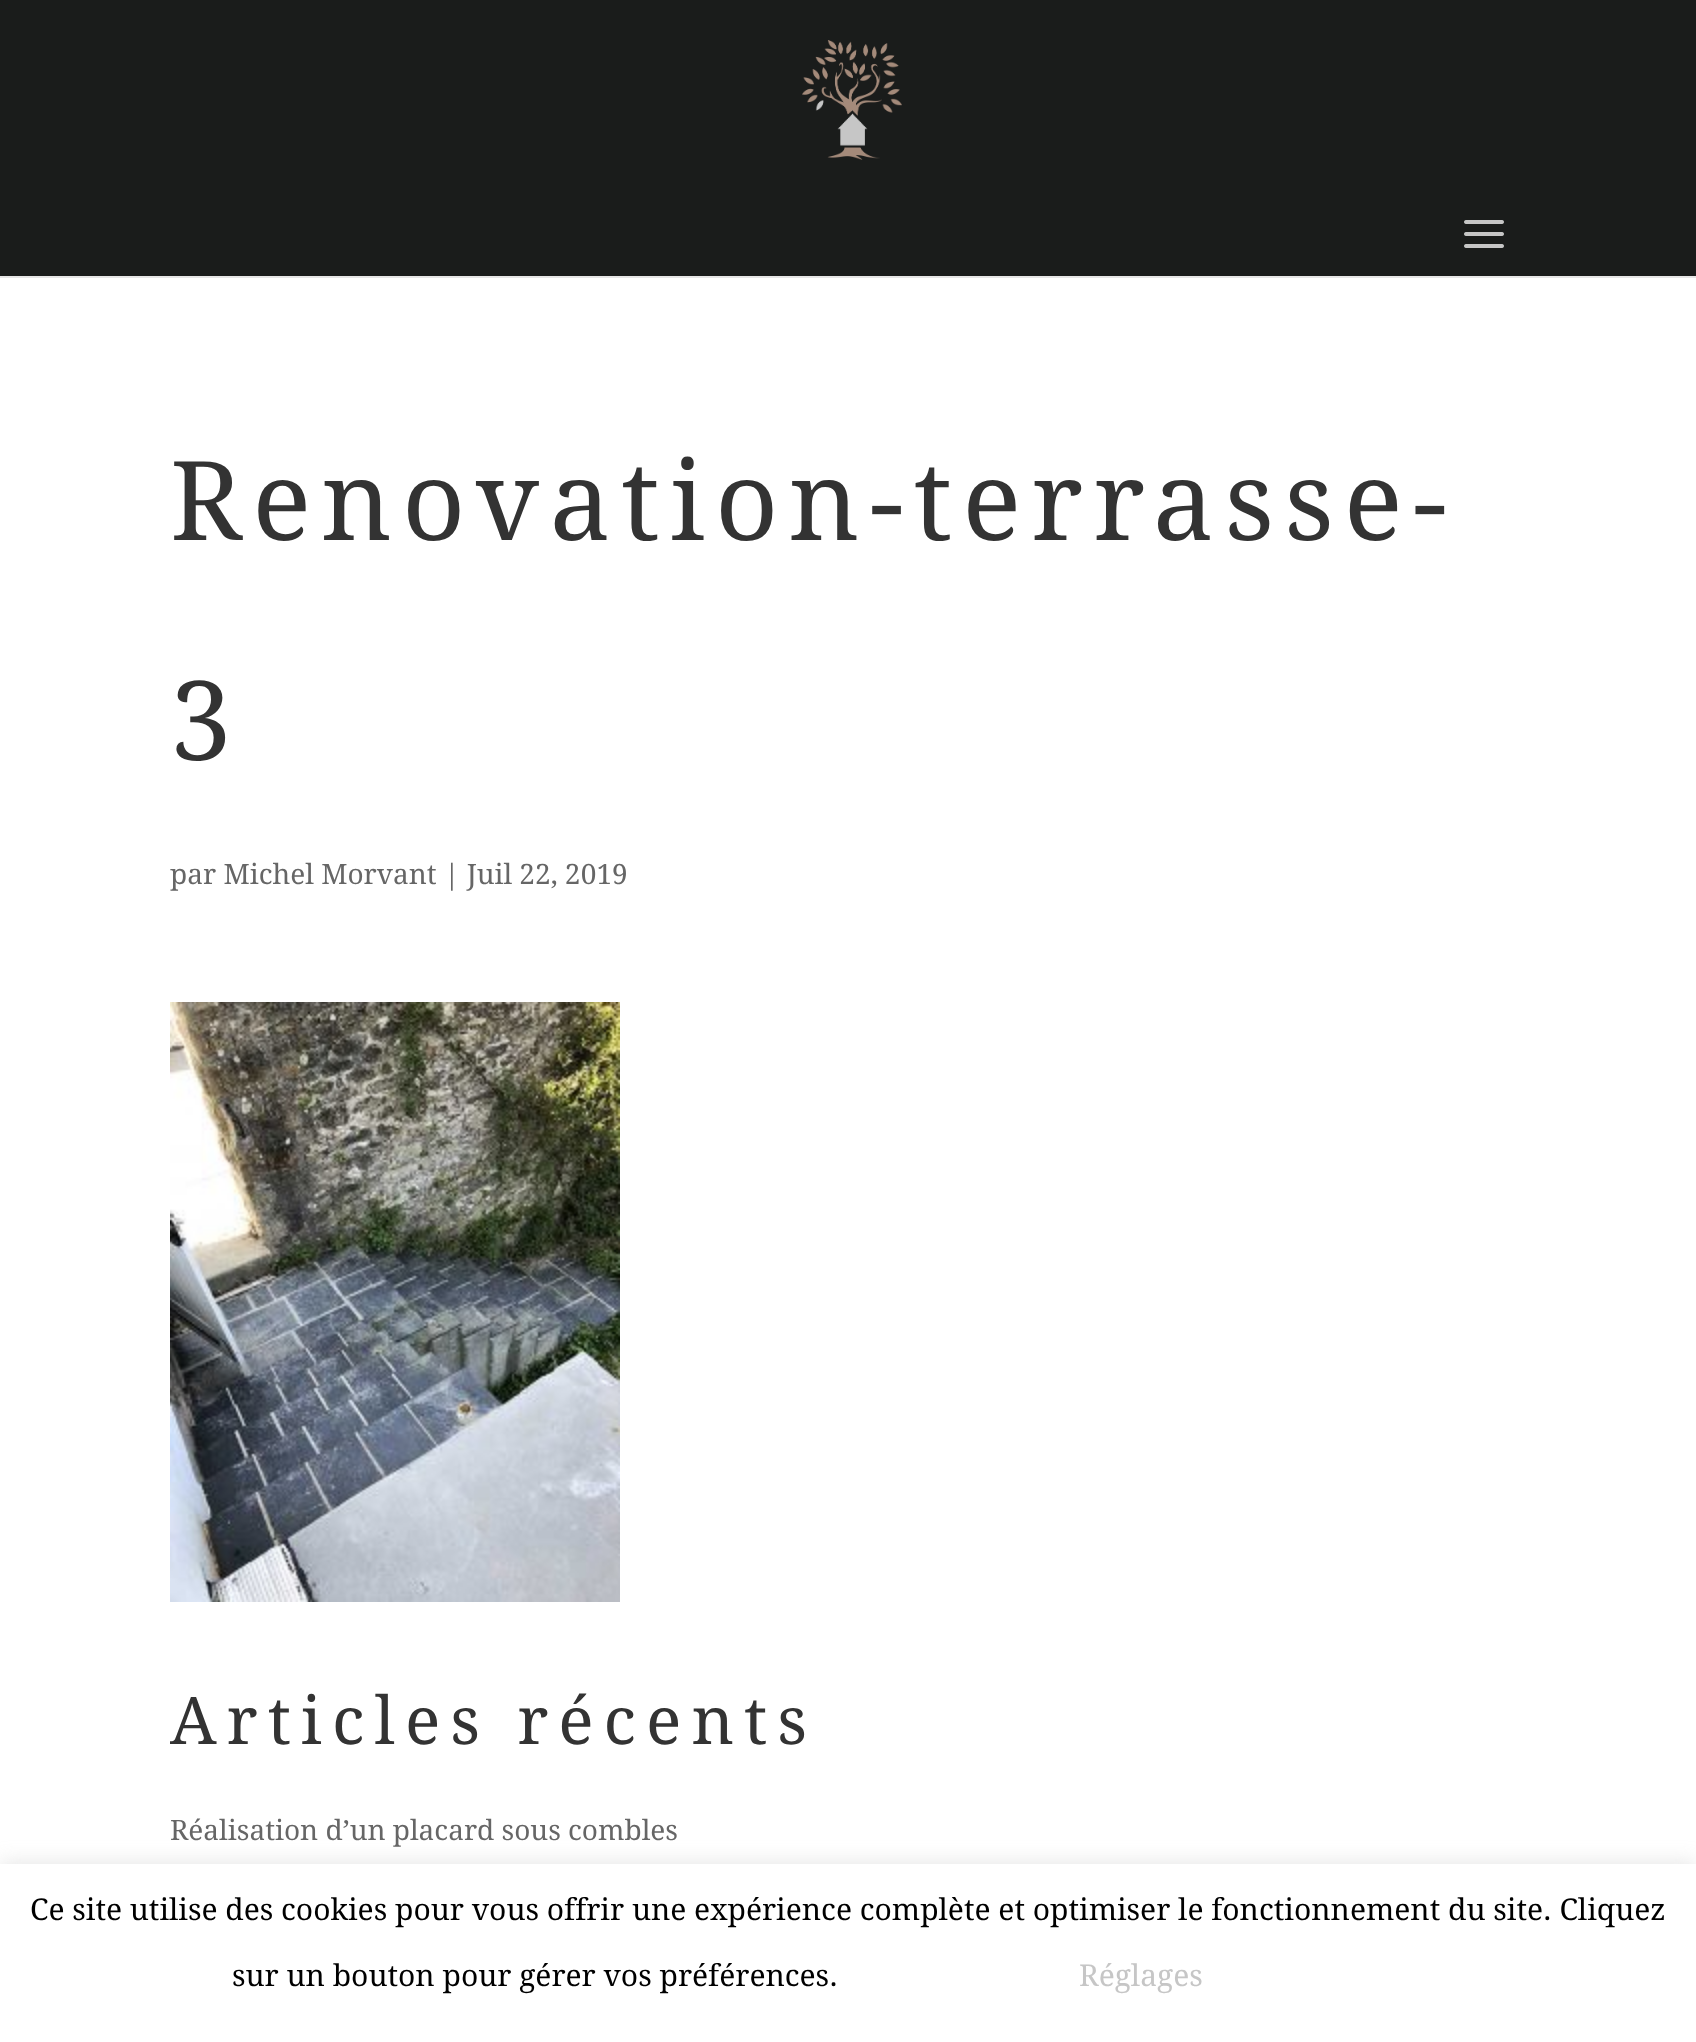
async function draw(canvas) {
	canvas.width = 1696;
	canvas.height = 2042;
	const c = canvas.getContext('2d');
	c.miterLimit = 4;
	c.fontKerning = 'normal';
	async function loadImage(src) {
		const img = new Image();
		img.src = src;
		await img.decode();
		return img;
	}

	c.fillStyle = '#fff';
	c.fillRect(0, 0, 1696, 2042);
	c.fillStyle = '#e6e6e6';
	c.fillRect(0, 276, 1696, 2);
	c.fillStyle = '#1a1c1b';
	c.fillRect(0, 0, 1696, 276);
	c.drawImage(await loadImage('img1.png'), 802, 40, 100, 120);
	c.drawImage(await loadImage('img2.png'), 1464, 220, 40, 28);
	c.letterSpacing = '10px';
	c.font = '110px Droid Serif';
	c.fillStyle = '#333';
	c.fillText('Renovation-terrasse-', 170, 540);
	c.fillText('3', 170, 760);
	c.letterSpacing = '0px';
	c.font = '28px Droid Serif';
	c.fillStyle = '#666';
	c.fillText('par Michel Morvant | Juil 22, 2019', 170, 884);
	c.drawImage(await loadImage('img3.png'), 170, 1002, 450, 600);
	c.letterSpacing = '10px';
	c.font = '66px Droid Serif';
	c.fillStyle = '#333';
	c.fillText('Articles récents', 170, 1744);
	c.letterSpacing = '0px';
	c.font = '28px Droid Serif';
	c.fillStyle = '#666';
	c.fillText('Réalisation d’un placard sous combles', 170, 1840);
	c.fillStyle = '#acabab4d';
	c.filter = 'blur(10px)';
	c.beginPath();
	c.rect(0, 1862, 1696, 178);
	c.fill();
	c.filter = 'none';
	c.fillStyle = '#fff';
	c.fillRect(0, 1864, 1696, 178);
	c.font = '30px Droid Serif';
	c.fillStyle = '#000';
	c.fillText('Ce site utilise des cookies pour vous offrir une expérience complète et optimiser le fonctionnement du site. Cliquez', 30, 1920);
	c.fillText('sur un bouton pour gérer vos préférences.', 232, 1986);
	c.fillStyle = '#c6c6c6';
	c.fillText('Réglages', 1079, 1986);
}

draw(document.querySelector('canvas'));
